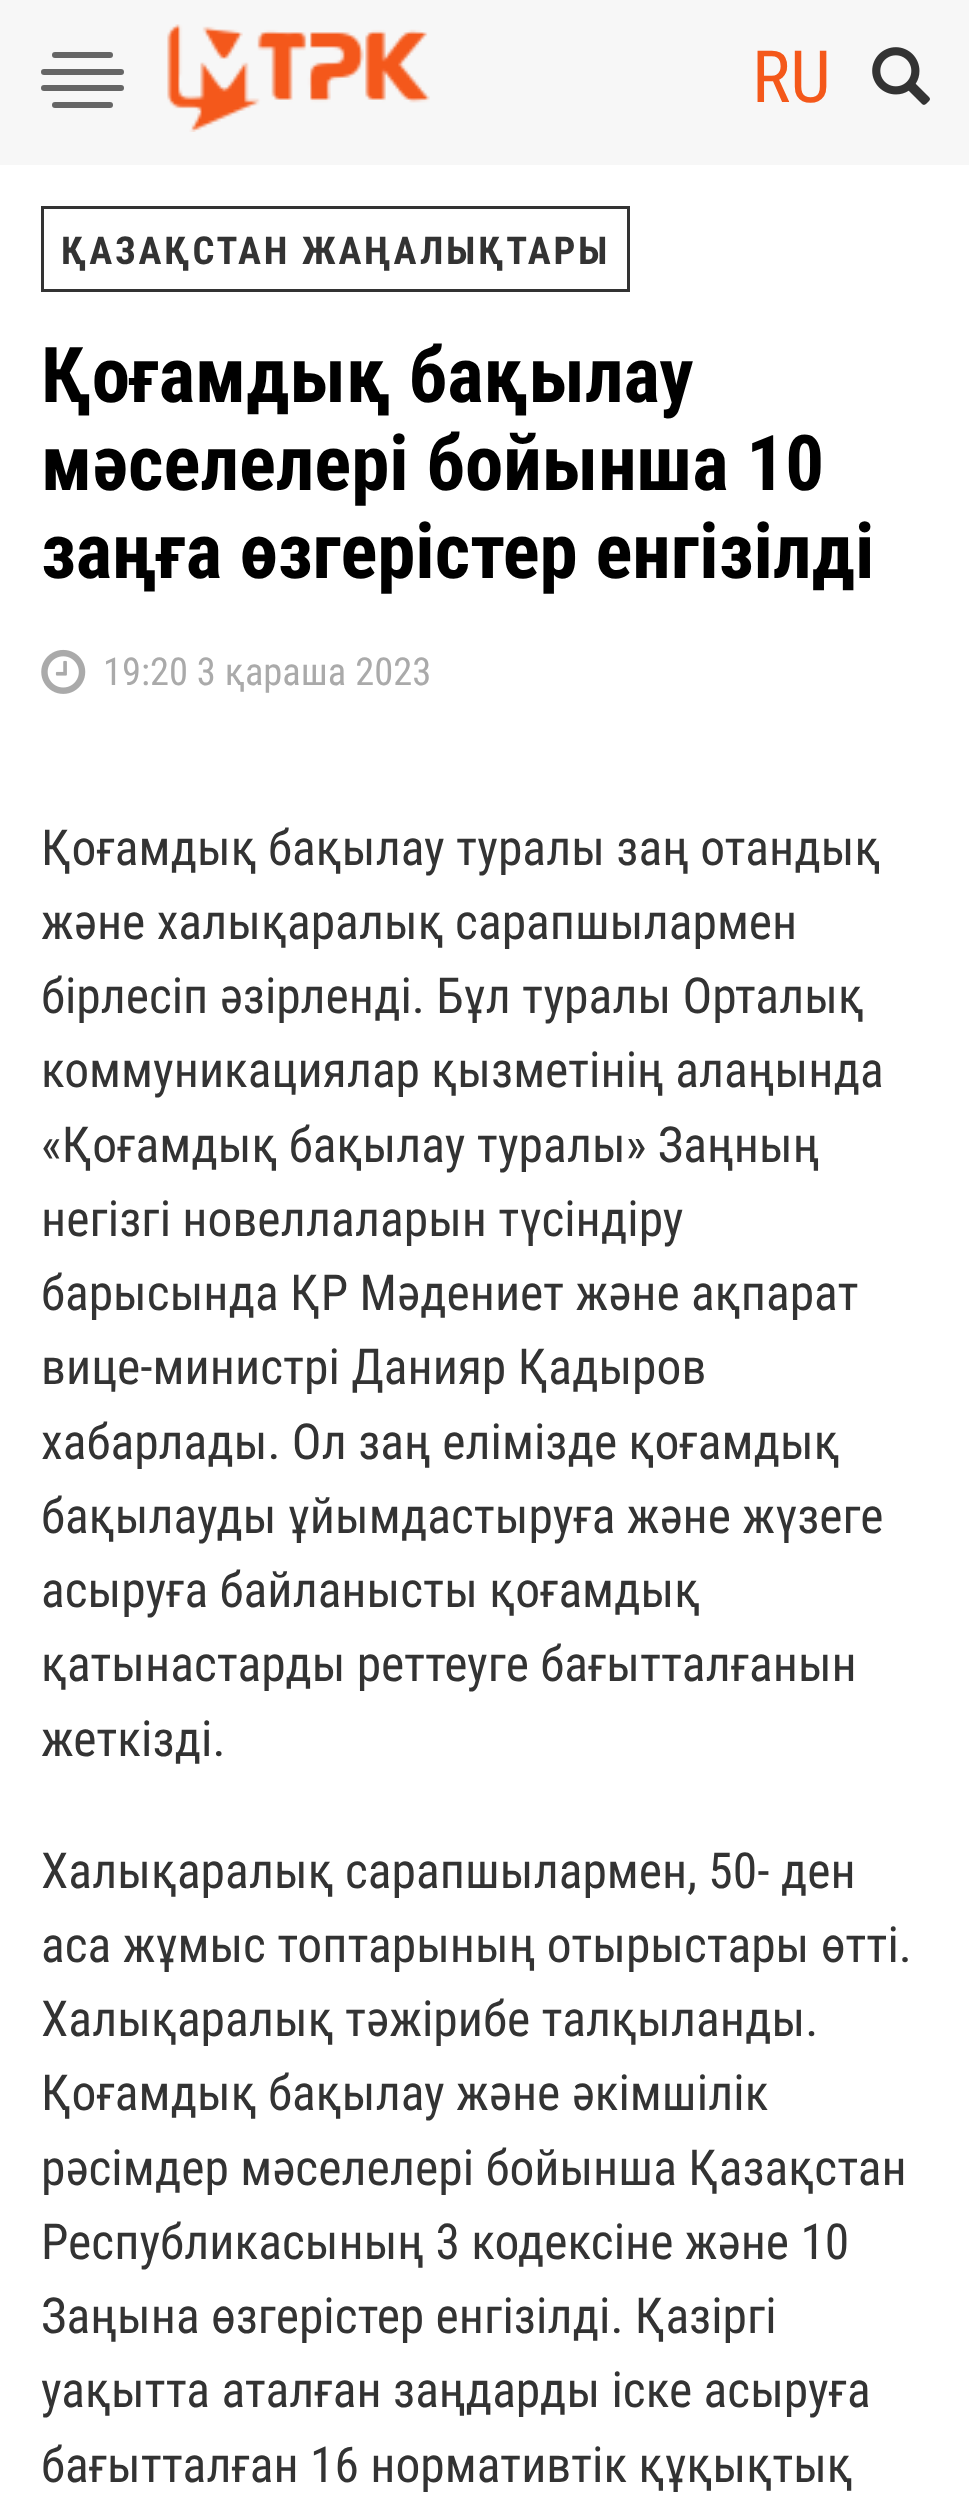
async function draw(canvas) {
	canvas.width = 969;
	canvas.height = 2511;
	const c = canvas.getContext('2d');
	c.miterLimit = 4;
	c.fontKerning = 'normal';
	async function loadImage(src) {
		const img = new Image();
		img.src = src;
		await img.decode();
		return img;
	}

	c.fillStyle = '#fff';
	c.fillRect(0, 0, 969, 2511);
	c.fillStyle = '#f7f7f7';
	c.fillRect(0, 0, 969, 165);
	c.fillStyle = '#666';
	c.beginPath();
	c.roundRect(52, 52, 61, 6, 3);
	c.fill();
	c.beginPath();
	c.roundRect(41, 69, 83, 6, 3);
	c.fill();
	c.beginPath();
	c.roundRect(41, 85, 83, 6, 3);
	c.fill();
	c.beginPath();
	c.roundRect(52, 102, 61, 6, 3);
	c.fill();
	c.drawImage(await loadImage('img1.png'), 167, 24, 263, 108);
	c.font = '72px Roboto Condensed';
	c.fillStyle = '#f4581a';
	c.fillText('RU', 752, 102);
	c.drawImage(await loadImage('img2.png'), 872, 47, 58, 58);
	c.strokeStyle = '#333';
	c.lineWidth = 3;
	c.strokeRect(42.5, 207.5, 586, 83);
	c.letterSpacing = '2.75px';
	c.font = 'bold 38.5px Roboto Condensed';
	c.fillStyle = '#333';
	c.fillText('ҚАЗАҚСТАН ЖАҢАЛЫҚТАРЫ', 61, 264);
	c.letterSpacing = '0px';
	c.font = 'bold 77px Roboto Condensed';
	c.fillStyle = '#000';
	for (const [text, x, y] of [
		['Қоғамдық бақылау', 41, 402],
		['мәселелері бойынша 10', 41, 490],
		['заңға өзгерістер енгізілді', 41, 578],
	]) {
		c.fillText(text, x, y);
	}
	c.drawImage(await loadImage('img3.png'), 41, 649, 45, 45);
	c.font = '38.5px Roboto Condensed';
	c.fillStyle = '#aaa';
	c.fillText('19:20 3 қараша 2023', 103, 685);
	c.font = '49.5px Roboto Condensed';
	c.fillStyle = '#333';
	for (const [text, x, y] of [
		['Қоғамдық бақылау туралы заң отандық', 41, 865],
		['және халықаралық сарапшылармен', 41, 939],
		['бірлесіп әзірленді. Бұл туралы Орталық', 41, 1013],
		['коммуникациялар қызметінің алаңында', 41, 1087],
		['«Қоғамдық бақылау туралы» Заңның', 41, 1162],
		['негізгі новеллаларын түсіндіру', 41, 1236],
		['барысында ҚР Мәдениет және ақпарат', 41, 1310],
		['вице-министрі Данияр Қадыров', 41, 1384],
		['хабарлады. Ол заң елімізде қоғамдық', 41, 1459],
		['бақылауды ұйымдастыруға және жүзеге', 41, 1533],
		['асыруға байланысты қоғамдық', 41, 1607],
		['қатынастарды реттеуге бағытталғанын', 41, 1681],
		['жеткізді.', 41, 1756],
		['Халықаралық сарапшылармен, 50- ден', 41, 1888],
		['аса жұмыс топтарының отырыстары өтті.', 41, 1962],
		['Халықаралық тәжірибе талқыланды.', 41, 2036],
		['Қоғамдық бақылау және әкімшілік', 41, 2110],
		['рәсімдер мәселелері бойынша Қазақстан', 41, 2185],
		['Республикасының 3 кодексіне және 10', 41, 2259],
		['Заңына өзгерістер енгізілді. Қазіргі', 41, 2333],
		['уақытта аталған заңдарды іске асыруға', 41, 2407],
		['бағытталған 16 нормативтік құқықтық', 41, 2482],
	]) {
		c.fillText(text, x, y);
	}
}

draw(document.querySelector('canvas'));
